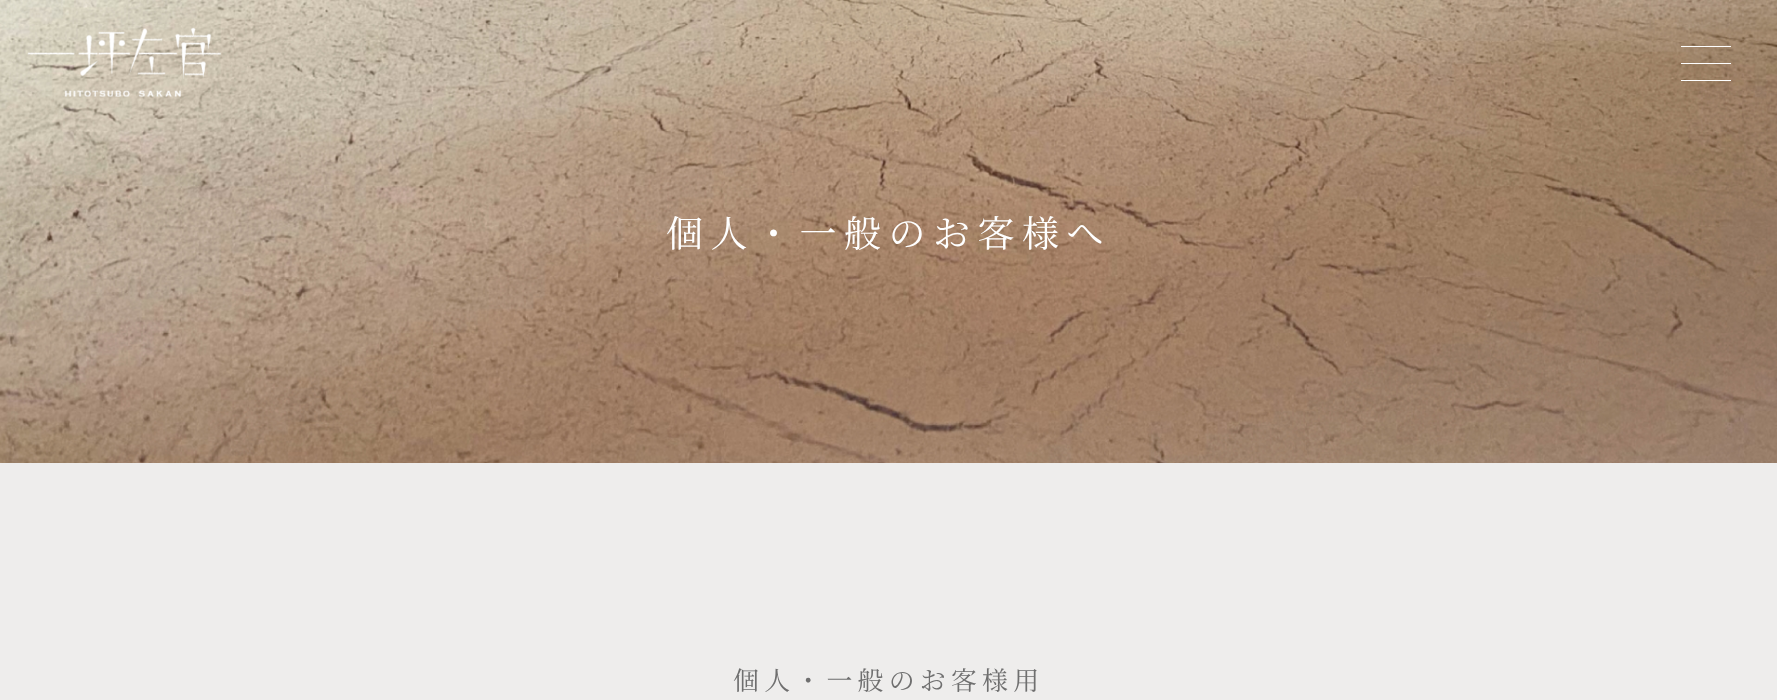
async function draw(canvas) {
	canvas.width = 1777;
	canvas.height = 700;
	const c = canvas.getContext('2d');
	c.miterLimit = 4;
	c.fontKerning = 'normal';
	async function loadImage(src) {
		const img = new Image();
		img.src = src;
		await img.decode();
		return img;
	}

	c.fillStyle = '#fff';
	c.fillRect(0, 0, 1777, 700);
	c.drawImage(await loadImage('img2.png'), 0, 0, 1777, 463);
	c.drawImage(await loadImage('img1.png'), 27, 27, 194, 70);
	for (const [x, y, w, h, color] of [
		[1681, 63, 50, 1, '#fff'],
		[1681, 46, 50, 1, '#fff'],
		[1681, 80, 50, 1, '#fff'],
	]) {
		c.fillStyle = color;
		c.fillRect(x, y, w, h);
	}
	c.letterSpacing = '7.5px';
	c.font = '37px Noto Serif JP';
	c.fillText('個人・一般のお客様へ', 666, 247);
	c.fillStyle = '#eeedec';
	c.fillRect(0, 463, 1777, 237);
	c.letterSpacing = '5.25px';
	c.font = '25.9px Noto Serif JP';
	c.fillStyle = '#6f6f6f';
	c.fillText('個人・一般のお客様用', 733, 690);
}

draw(document.querySelector('canvas'));
